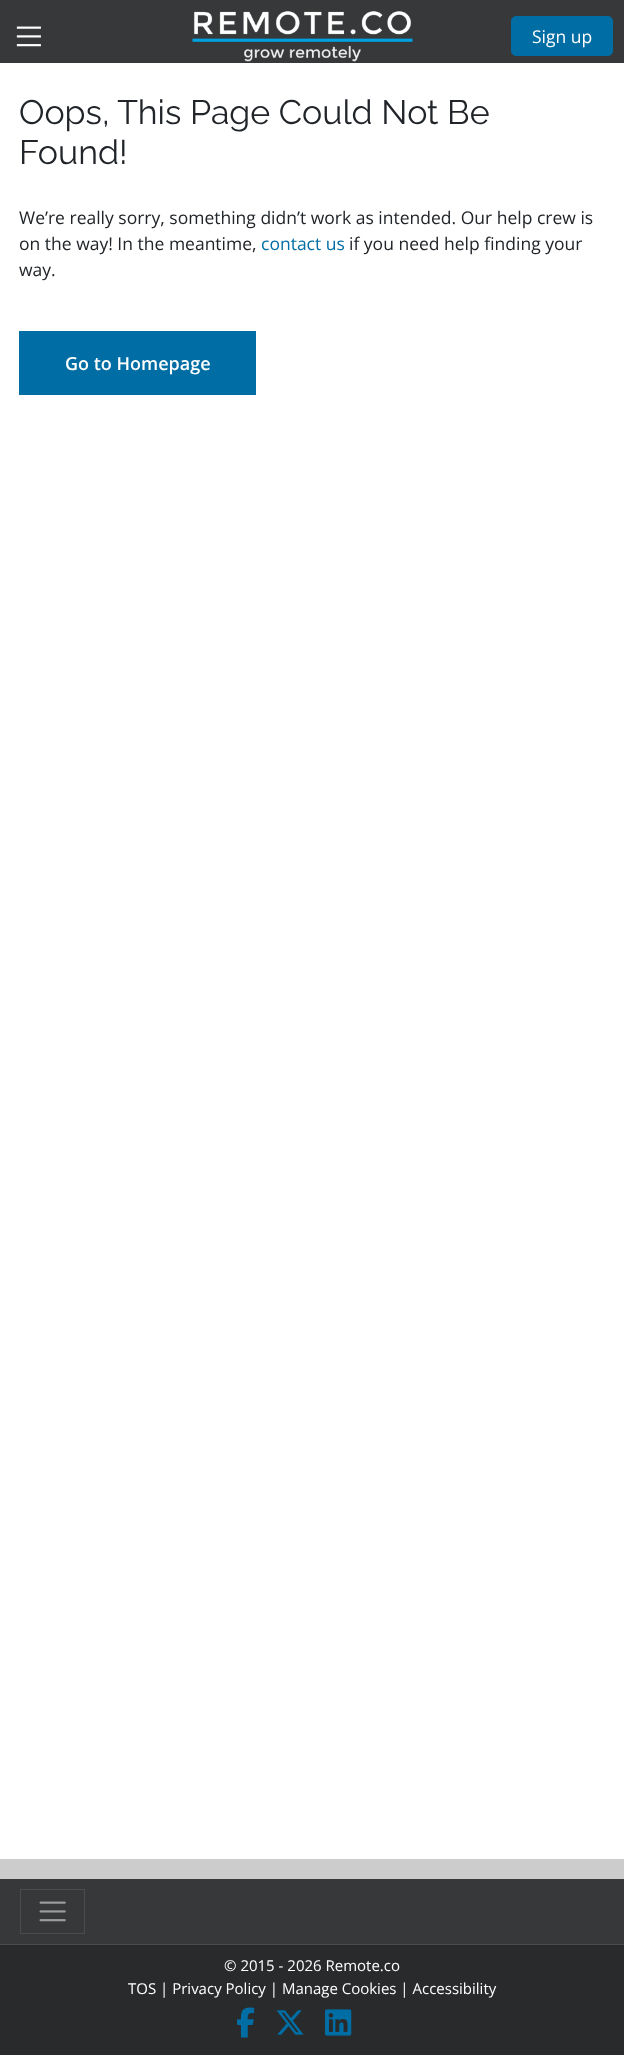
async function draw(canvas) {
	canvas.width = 624;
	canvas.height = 2055;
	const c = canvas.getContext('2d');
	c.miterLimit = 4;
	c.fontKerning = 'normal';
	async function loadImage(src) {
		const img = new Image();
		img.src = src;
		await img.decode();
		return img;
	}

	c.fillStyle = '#fff';
	c.fillRect(0, 0, 624, 2055);
	c.fillStyle = '#363839';
	c.fillRect(0, 0, 624, 63);
	c.drawImage(await loadImage('img1.png'), 16, 26, 25, 21);
	c.drawImage(await loadImage('img2.png'), 192, 11, 221, 51);
	c.fillStyle = '#006ea5';
	c.beginPath();
	c.roundRect(511.5, 16.5, 101, 39, 4.5);
	c.fill();
	c.strokeStyle = '#006ea5';
	c.stroke();
	c.font = '17.5px Open Sans';
	c.fillStyle = '#fff';
	c.fillText('Sign up', 532, 43);
	c.font = '100 33.9px Raleway';
	c.fillStyle = '#212529';
	c.fillText('Oops, This Page Could Not Be', 19, 124);
	c.fillText('Found!', 19, 164);
	c.font = '17.5px Open Sans';
	c.fillText('We’re really sorry, something didn’t work as intended. Our help crew is', 19, 224);
	c.fillText('on the way! In the meantime,', 19, 250);
	c.fillStyle = '#006ea5';
	c.fillText('contact us', 261, 250);
	c.fillStyle = '#212529';
	c.fillText('if you need help finding your', 349, 250);
	c.fillText('way.', 19, 276);
	c.fillStyle = '#006ea5';
	c.fillRect(19, 331, 237, 64);
	c.font = '600 18px Open Sans';
	c.fillStyle = '#fff';
	c.fillText('Go to Homepage', 65, 370);
	c.fillStyle = '#363839';
	c.fillRect(0, 1879, 624, 65);
	c.fillStyle = '#ccc';
	c.fillRect(0, 1859, 624, 20);
	c.strokeStyle = '#4a4c4d';
	c.strokeRect(20.5, 1889.5, 64, 44);
	c.drawImage(await loadImage('img3.png'), 39, 1901, 27, 21);
	c.fillStyle = '#282a2b';
	c.fillRect(0, 1945, 624, 110);
	c.fillStyle = '#4b4c4d';
	c.fillRect(0, 1944, 624, 1);
	c.font = '15px Open Sans';
	c.fillStyle = '#fff';
	c.fillText('© 2015 - 2026 Remote.co', 224, 1971);
	c.fillText('TOS | Privacy Policy | Manage Cookies | Accessibility', 128, 1994);
	c.drawImage(await loadImage('img4.png'), 237, 2007, 18, 31);
	c.drawImage(await loadImage('img5.png'), 276, 2010, 28, 25);
	c.drawImage(await loadImage('img6.png'), 325, 2009, 27, 27);
}

draw(document.querySelector('canvas'));
